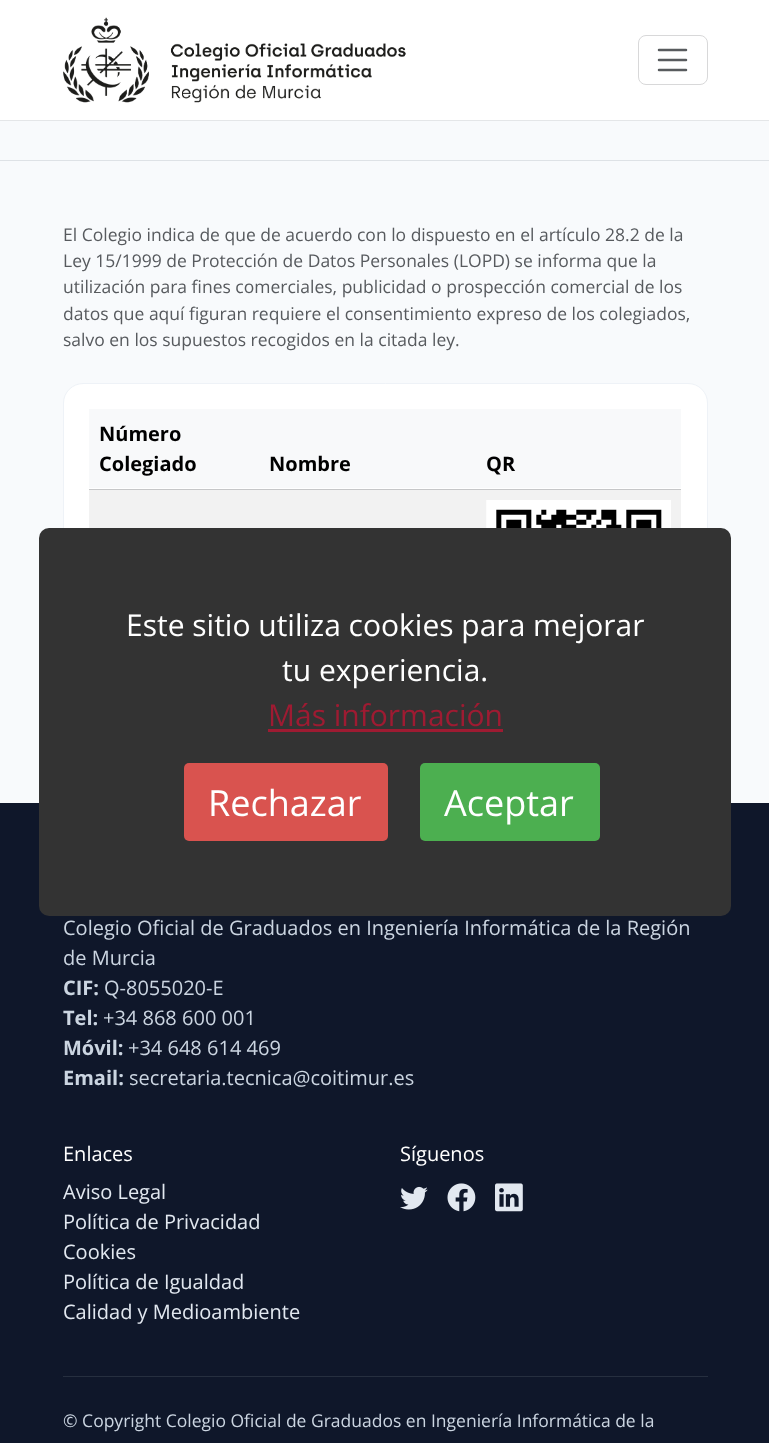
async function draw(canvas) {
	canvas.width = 769;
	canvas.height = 1443;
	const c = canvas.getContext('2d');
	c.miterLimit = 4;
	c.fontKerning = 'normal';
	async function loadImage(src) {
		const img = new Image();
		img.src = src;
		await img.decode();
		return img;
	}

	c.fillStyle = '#f8fafc';
	c.fillRect(0, 0, 769, 1443);
	c.fillStyle = '#00000014';
	c.fillRect(0, 120, 769, 1);
	c.fillStyle = '#fffffff2';
	c.fillRect(0, 0, 769, 120);
	c.drawImage(await loadImage('img1.png'), 63, 17, 343, 86);
	c.beginPath();
	c.roundRect(638.5, 35.5, 69, 49, 7.5);
	c.strokeStyle = '#d8d8d9';
	c.stroke();
	c.beginPath();
	c.moveTo(659, 50);
	c.lineTo(686, 50);
	c.moveTo(659, 60);
	c.lineTo(686, 60);
	c.moveTo(659, 70);
	c.lineTo(686, 70);
	c.strokeStyle = '#585b5e';
	c.lineWidth = 2.5;
	c.lineCap = 'round';
	c.stroke();
	c.fillStyle = '#dee2e6';
	c.fillRect(0, 160, 769, 1);
	c.font = '17.5px Open Sans';
	c.fillStyle = '#575a5e';
	for (const [text, x, y] of [
		['El Colegio indica de que de acuerdo con lo dispuesto en el artículo 28.2 de la', 63, 241],
		['Ley 15/1999 de Protección de Datos Personales (LOPD) se informa que la', 63, 267],
		['utilización para fines comerciales, publicidad o prospección comercial de los', 63, 293],
		['datos que aquí figuran requiere el consentimiento expreso de los colegiados,', 63, 320],
		['salvo en los supuestos recogidos en la citada ley.', 63, 346],
	]) {
		c.fillText(text, x, y);
	}
	c.fillStyle = '#fff';
	c.beginPath();
	c.roundRect(63.5, 383.5, 644, 359, 19.5);
	c.fill();
	c.strokeStyle = '#eef2f7';
	c.lineWidth = 1;
	c.stroke();
	c.fillStyle = '#f8f9fa';
	c.fillRect(89, 409, 592, 79);
	c.font = 'bold 20px Open Sans';
	c.fillStyle = '#000';
	for (const [text, x, y] of [
		['Número', 99, 441],
		['Colegiado', 99, 471],
		['Nombre', 269, 471],
	]) {
		c.fillText(text, x, y);
	}
	c.fillStyle = '#c6c7c8';
	c.fillRect(89, 489, 592, 1);
	c.fillStyle = '#000';
	c.fillText('QR', 486, 471);
	c.fillStyle = '#f2f2f2';
	c.fillRect(89, 490, 592, 38);
	c.drawImage(await loadImage('img2.png'), 486, 500, 185, 28);
	c.fillStyle = '#0f172a';
	c.fillRect(0, 803, 769, 640);
	c.fillStyle = '#333';
	c.beginPath();
	c.roundRect(39, 528, 692, 388, 10);
	c.fill();
	c.font = '30px Open Sans';
	c.fillStyle = '#fff';
	c.fillText('Este sitio utiliza cookies para mejorar', 126, 636);
	c.fillText('tu experiencia.', 282, 681);
	c.fillStyle = '#9e1b32';
	c.fillText('Más información', 268, 726);
	c.fillRect(268, 729, 235, 3);
	c.fillStyle = '#d9534f';
	c.beginPath();
	c.roundRect(184, 763, 204, 78, 5);
	c.fill();
	c.font = '36px Open Sans';
	c.fillStyle = '#fff';
	c.fillText('Rechazar', 208, 816);
	c.fillStyle = '#4caf50';
	c.beginPath();
	c.roundRect(420, 763, 180, 78, 5);
	c.fill();
	c.fillStyle = '#fff';
	c.fillText('Aceptar', 444, 816);
	c.font = '20px Open Sans';
	c.fillStyle = '#cbd5e1';
	c.fillText('Colegio Oficial de Graduados en Ingeniería Informática de la Región', 63, 935);
	c.fillText('de Murcia', 63, 965);
	c.font = 'bold 20px Open Sans';
	c.fillText('CIF:', 63, 995);
	c.font = '20px Open Sans';
	c.fillText('Q-8055020-E', 104, 995);
	c.font = 'bold 20px Open Sans';
	c.fillText('Tel:', 63, 1025);
	c.font = '20px Open Sans';
	c.fillText('+34 868 600 001', 103, 1025);
	c.font = 'bold 20px Open Sans';
	c.fillText('Móvil:', 63, 1055);
	c.font = '20px Open Sans';
	c.fillText('+34 648 614 469', 128, 1055);
	c.font = 'bold 20px Open Sans';
	c.fillText('Email:', 63, 1085);
	c.font = '20px Open Sans';
	c.fillText('secretaria.tecnica@coitimur.es', 129, 1085);
	c.fillStyle = '#fff';
	c.fillText('Enlaces', 63, 1161);
	c.fillStyle = '#e2e8f0';
	for (const [text, x, y] of [
		['Aviso Legal', 63, 1199],
		['Política de Privacidad', 63, 1229],
		['Cookies', 63, 1259],
		['Política de Igualdad', 63, 1289],
		['Calidad y Medioambiente', 63, 1319],
	]) {
		c.fillText(text, x, y);
	}
	c.fillStyle = '#fff';
	c.fillText('Síguenos', 400, 1161);
	c.drawImage(await loadImage('img3.png'), 400, 1186, 28, 24);
	c.drawImage(await loadImage('img4.png'), 447, 1183, 29, 29);
	c.drawImage(await loadImage('img5.png'), 495, 1183, 28, 29);
	c.fillStyle = '#262f3f';
	c.fillRect(63, 1376, 645, 1);
	c.font = '17.5px Open Sans';
	c.fillStyle = '#cbd5e1';
	c.fillText('© Copyright Colegio Oficial de Graduados en Ingeniería Informática de la', 63, 1427);
}

draw(document.querySelector('canvas'));
